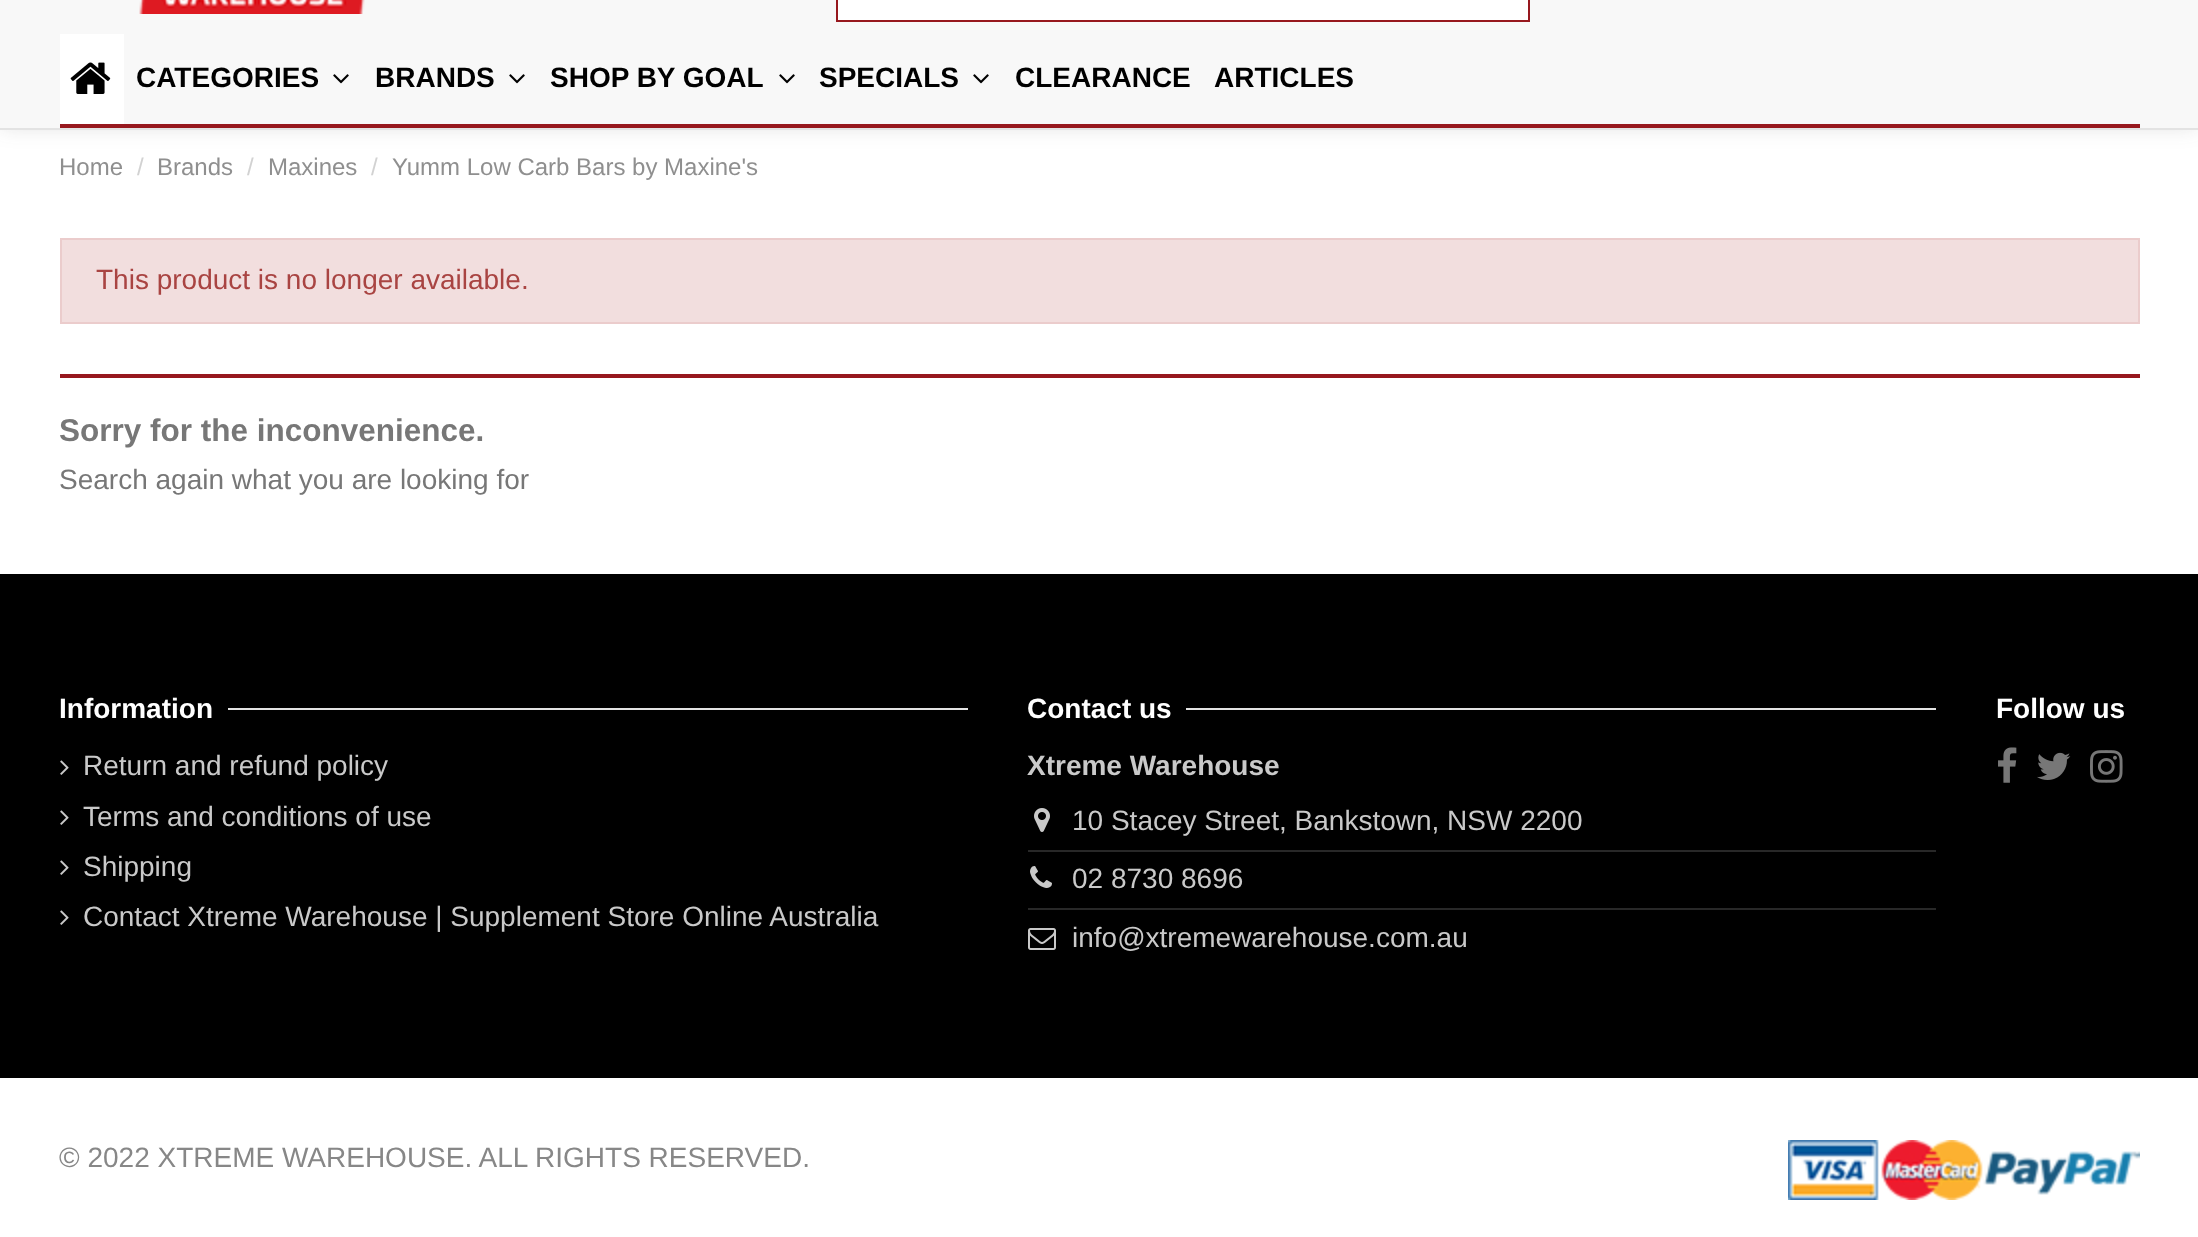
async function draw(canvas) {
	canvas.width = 2198;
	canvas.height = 1237;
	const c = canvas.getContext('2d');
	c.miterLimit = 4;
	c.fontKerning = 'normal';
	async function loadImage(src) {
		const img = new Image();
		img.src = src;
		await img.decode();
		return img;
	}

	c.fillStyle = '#fff';
	c.fillRect(0, 0, 2198, 1237);
	c.fillStyle = '#3d39392b';
	c.filter = 'blur(11px)';
	c.beginPath();
	c.rect(0, -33, 2198, 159);
	c.fill();
	c.filter = 'none';
	c.fillStyle = '#f8f8f8';
	c.fillRect(0, 0, 2198, 128);
	c.fillStyle = '#e3e3e3';
	c.fillRect(0, 128, 2198, 2);
	c.drawImage(await loadImage('img1.png'), 139, 0, 226, 14);
	c.fillStyle = '#fff';
	c.beginPath();
	c.rect(837, -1, 692, 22);
	c.fill();
	c.strokeStyle = '#97181e';
	c.lineWidth = 2;
	c.stroke();
	c.fillStyle = '#97181e';
	c.fillRect(60, 124, 2080, 4);
	c.fillStyle = '#fff';
	c.fillRect(60, 34, 64, 90);
	c.drawImage(await loadImage('img2.png'), 70, 62, 41, 32);
	c.font = 'bold 28px Liberation Sans';
	c.fillStyle = '#000';
	c.fillText('CATEGORIES', 136, 87);
	c.drawImage(await loadImage('img3.png'), 333, 74, 16, 10);
	c.fillText('BRANDS', 375, 87);
	c.drawImage(await loadImage('img3.png'), 509, 74, 16, 10);
	c.fillText('SHOP BY GOAL', 550, 87);
	c.drawImage(await loadImage('img3.png'), 779, 74, 16, 10);
	c.fillText('SPECIALS', 819, 87);
	c.drawImage(await loadImage('img3.png'), 973, 74, 16, 10);
	c.fillText('CLEARANCE', 1015, 87);
	c.fillText('ARTICLES', 1214, 87);
	c.font = '24px Liberation Sans';
	c.fillStyle = '#8f8f8f';
	c.fillText('Home', 59, 175);
	c.fillStyle = '#d2d2d2';
	c.fillText('/', 137, 175);
	c.fillStyle = '#8f8f8f';
	c.fillText('Brands', 157, 175);
	c.fillStyle = '#d2d2d2';
	c.fillText('/', 247, 175);
	c.fillStyle = '#8f8f8f';
	c.fillText('Maxines', 268, 175);
	c.fillStyle = '#d2d2d2';
	c.fillText('/', 371, 175);
	c.fillStyle = '#8f8f8f';
	c.fillText('Yumm Low Carb Bars by Maxine\'s', 392, 175);
	c.fillStyle = '#f2dede';
	c.beginPath();
	c.rect(61, 239, 2078, 84);
	c.fill();
	c.strokeStyle = '#ebcccc';
	c.stroke();
	c.font = '28px Liberation Sans';
	c.fillStyle = '#a94442';
	c.fillText('This product is no longer available.', 96, 289);
	c.fillStyle = '#97181e';
	c.fillRect(60, 374, 2080, 4);
	c.font = 'bold 31.5px Liberation Sans';
	c.fillStyle = '#777';
	c.fillText('Sorry for the inconvenience.', 59, 441);
	c.font = '28px Liberation Sans';
	c.fillText('Search again what you are looking for', 59, 489);
	c.fillStyle = '#000';
	c.fillRect(0, 574, 2198, 504);
	c.font = 'bold 28px Liberation Sans';
	c.fillStyle = '#fff';
	c.fillText('Information', 59, 718);
	c.fillStyle = '#e3e3e3';
	c.fillRect(228, 708, 740, 2);
	c.drawImage(await loadImage('img4.png'), 60, 760, 9, 15);
	c.font = '28px Liberation Sans';
	c.fillStyle = '#c9c9c9';
	c.fillText('Return and refund policy', 83, 775);
	c.drawImage(await loadImage('img4.png'), 60, 810, 9, 15);
	c.fillText('Terms and conditions of use', 83, 826);
	c.drawImage(await loadImage('img4.png'), 60, 860, 9, 15);
	c.fillText('Shipping', 83, 876);
	c.drawImage(await loadImage('img4.png'), 60, 910, 9, 15);
	c.fillText('Contact Xtreme Warehouse | Supplement Store Online Australia', 83, 926);
	c.font = 'bold 28px Liberation Sans';
	c.fillStyle = '#fff';
	c.fillText('Contact us', 1027, 718);
	c.fillStyle = '#e3e3e3';
	c.fillRect(1186, 708, 750, 2);
	c.fillStyle = '#c9c9c9';
	c.fillText('Xtreme Warehouse', 1027, 775);
	c.drawImage(await loadImage('img5.png'), 1034, 808, 16, 24);
	c.font = '28px Liberation Sans';
	c.fillText('10 Stacey Street, Bankstown, NSW 2200', 1072, 830);
	c.fillStyle = '#282828';
	c.fillRect(1028, 850, 908, 2);
	c.drawImage(await loadImage('img6.png'), 1030, 866, 22, 22);
	c.fillStyle = '#c9c9c9';
	c.fillText('02 8730 8696', 1072, 888);
	c.fillStyle = '#282828';
	c.fillRect(1028, 908, 908, 2);
	c.drawImage(await loadImage('img7.png'), 1028, 928, 28, 22);
	c.fillStyle = '#c9c9c9';
	c.fillText('info@xtremewarehouse.com.au', 1072, 947);
	c.font = 'bold 28px Liberation Sans';
	c.fillStyle = '#fff';
	c.fillText('Follow us', 1996, 718);
	c.drawImage(await loadImage('img8.png'), 1998, 747, 19, 36);
	c.drawImage(await loadImage('img9.png'), 2037, 752, 34, 28);
	c.drawImage(await loadImage('img10.png'), 2090, 750, 33, 33);
	c.font = '28px Liberation Sans';
	c.fillStyle = '#878787';
	c.fillText('© 2022 XTREME WAREHOUSE. ALL RIGHTS RESERVED.', 59, 1167);
	c.drawImage(await loadImage('img11.png'), 1788, 1140, 352, 60);
}

draw(document.querySelector('canvas'));
